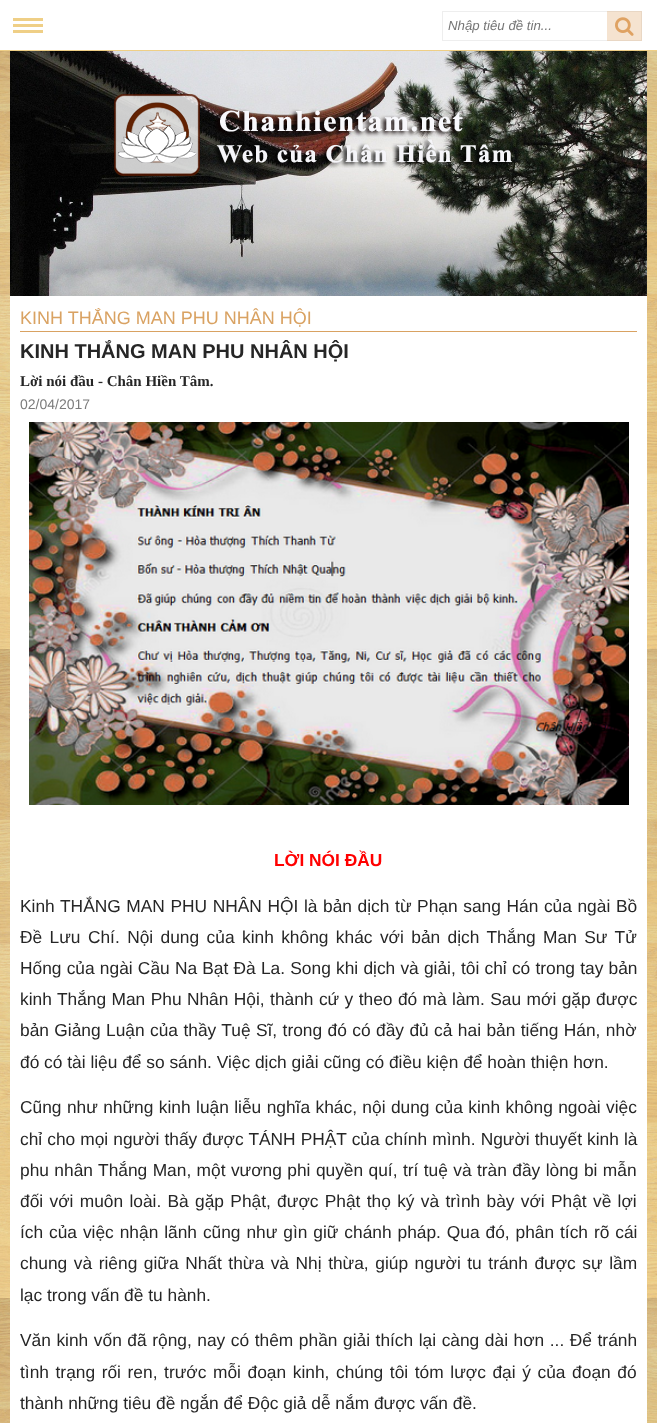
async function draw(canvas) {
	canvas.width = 657;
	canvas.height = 1423;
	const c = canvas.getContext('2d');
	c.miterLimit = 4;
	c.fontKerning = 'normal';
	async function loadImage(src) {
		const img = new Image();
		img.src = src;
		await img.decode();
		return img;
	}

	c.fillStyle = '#fff';
	c.fillRect(0, 0, 657, 1423);
	c.drawImage(await loadImage('img1.png'), 0, 51, 657, 1372);
	for (const [x, y, w, h, color] of [
		[0, 50, 657, 1, '#efcf86'],
		[13, 18, 30, 3, '#efcf86'],
		[13, 24, 30, 3, '#efcf86'],
		[13, 30, 30, 3, '#efcf86'],
	]) {
		c.fillStyle = color;
		c.fillRect(x, y, w, h);
	}
	c.strokeStyle = '#eee';
	c.strokeRect(442.5, 11.5, 199, 29);
	c.font = 'italic 13.25px Liberation Sans';
	c.fillStyle = '#757575';
	c.fillText('Nhập tiêu đề tin...', 448, 30);
	c.fillStyle = '#dfa2624d';
	c.fillRect(607, 11, 35, 30);
	c.drawImage(await loadImage('img2.png'), 615, 17, 19, 19);
	c.drawImage(await loadImage('img3.png'), 10, 51, 637, 245);
	c.drawImage(await loadImage('img4.png'), 114, 94, 398, 82);
	c.fillStyle = '#fff';
	c.fillRect(10, 296, 637, 1127);
	c.fillStyle = '#d9a262';
	c.fillRect(20, 331, 617, 1);
	c.font = '18px Liberation Sans';
	c.fillText('KINH THẮNG MAN PHU NHÂN HỘI', 20, 324);
	c.font = 'bold 20px Liberation Sans';
	c.fillStyle = '#262626';
	c.fillText('KINH THẮNG MAN PHU NHÂN HỘI', 20, 358);
	c.font = 'bold 15px Liberation Serif';
	c.fillText('Lời nói đầu - Chân Hiền Tâm.', 20, 386);
	c.font = '14px Liberation Sans';
	c.fillStyle = '#7b7b7b';
	c.fillText('02/04/2017', 20, 409);
	c.drawImage(await loadImage('img5.png'), 29, 422, 600, 383);
	c.font = 'bold 17.35px Liberation Sans';
	c.fillStyle = '#f00';
	c.fillText('LỜI NÓI ĐẦU', 274, 866);
	c.wordSpacing = '0.8px';
	c.font = '17.35px Liberation Sans';
	c.fillStyle = '#262626';
	c.fillText('Kinh THẮNG MAN PHU NHÂN HỘI là bản dịch từ Phạn sang Hán của ngài Bồ', 20, 912);
	c.wordSpacing = '2.6px';
	c.fillText('Đề Lưu Chí. Nội dung của kinh không khác với bản dịch Thắng Man Sư Tử', 20, 943);
	c.wordSpacing = '0.4px';
	c.fillText('Hống của ngài Cầu Na Bạt Đà La. Song khi dịch và giải, tôi chỉ có trong tay bản', 20, 974);
	c.wordSpacing = '0.6px';
	c.fillText('kinh Thắng Man Phu Nhân Hội, thành cứ y theo đó mà làm. Sau mới gặp được', 20, 1005);
	c.fillText('bản Giảng Luận của thầy Tuệ Sĩ, trong đó có đầy đủ cả hai bản tiếng Hán, nhờ', 20, 1036);
	c.wordSpacing = '0px';
	c.fillText('đó có tài liệu để so sánh. Việc dịch giải cũng có điều kiện để hoàn thiện hơn.', 20, 1068);
	c.wordSpacing = '0.6px';
	c.fillText('Cũng như những kinh luận liễu nghĩa khác, nội dung của kinh không ngoài việc', 20, 1113);
	c.wordSpacing = '0.25px';
	c.fillText('chỉ cho mọi người thấy được TÁNH PHẬT của chính mình. Người thuyết kinh là', 20, 1145);
	c.wordSpacing = '0.6px';
	c.fillText('phu nhân Thắng Man, một vương phi quyền quí, trí tuệ và tràn đầy lòng bi mẫn', 20, 1176);
	c.wordSpacing = '1.5px';
	c.fillText('đối với muôn loài. Bà gặp Phật, được Phật thọ ký và trình bày với Phật về lợi', 20, 1207);
	c.wordSpacing = '1.1px';
	c.fillText('ích của việc nhận lãnh cũng như gìn giữ chánh pháp. Qua đó, phân tích rõ cái', 20, 1238);
	c.wordSpacing = '1.75px';
	c.fillText('chung và riêng giữa Nhất thừa và Nhị thừa, giúp người tu tránh được sự lầm', 20, 1269);
	c.wordSpacing = '0px';
	c.fillText('lạc trong vấn đề tu hành.', 20, 1301);
	c.wordSpacing = '0.75px';
	c.fillText('Văn kinh vốn đã rộng, nay có thêm phần giải thích lại càng dài hơn ... Để tránh', 20, 1346);
	c.wordSpacing = '1.8px';
	c.fillText('tình trạng rối ren, trước mỗi đoạn kinh, chúng tôi tóm lược đại ý của đoạn đó', 20, 1378);
	c.wordSpacing = '0px';
	c.fillText('thành những tiêu đề ngắn để Độc giả dễ nắm được vấn đề.', 20, 1409);
}

draw(document.querySelector('canvas'));
